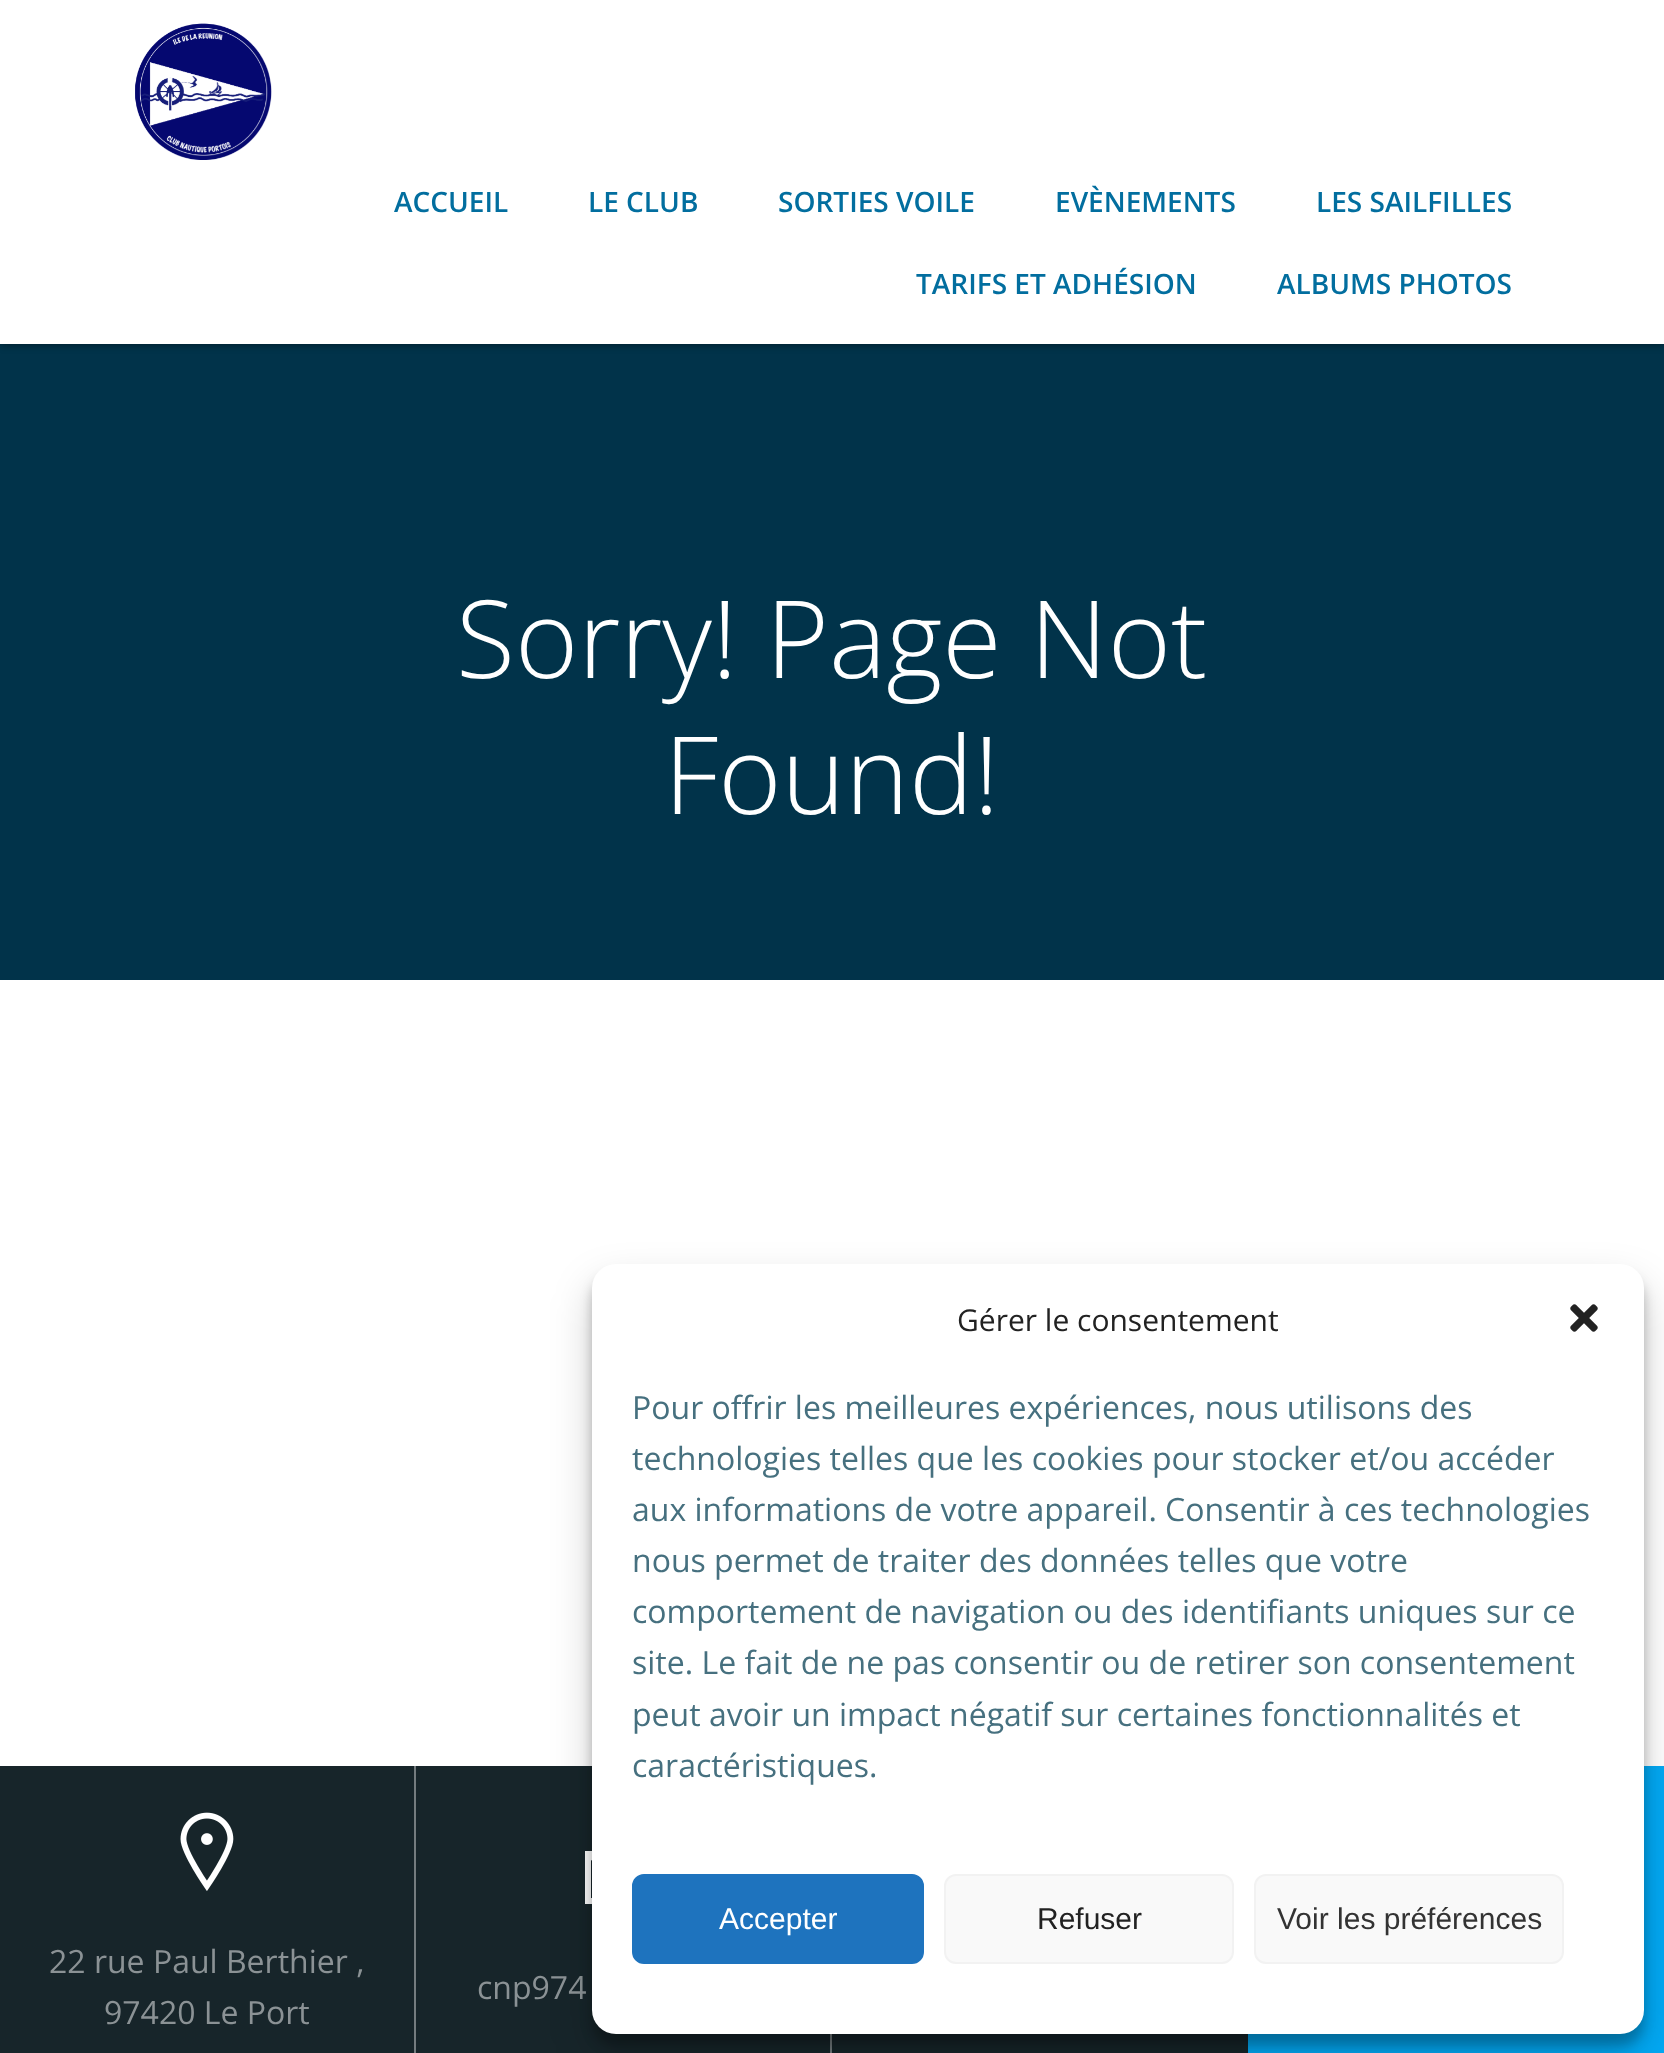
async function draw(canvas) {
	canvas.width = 1664;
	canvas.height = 2053;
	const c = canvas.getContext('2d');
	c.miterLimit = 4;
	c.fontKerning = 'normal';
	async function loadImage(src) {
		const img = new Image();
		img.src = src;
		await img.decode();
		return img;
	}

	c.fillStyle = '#fff';
	c.fillRect(0, 0, 1664, 2053);
	c.fillStyle = '#01334a';
	c.fillRect(0, 344, 1664, 636);
	c.fillStyle = '#00000080';
	c.filter = 'blur(4px)';
	c.beginPath();
	c.rect(0, 0, 1664, 344);
	c.fill();
	c.filter = 'none';
	c.fillStyle = '#fff';
	c.fillRect(0, 0, 1664, 344);
	c.drawImage(await loadImage('img1.png'), 135, 23, 137, 137);
	c.font = '600 28px Open Sans';
	c.fillStyle = '#026e9f';
	for (const [text, x, y] of [
		['ACCUEIL', 394, 212],
		['LE CLUB', 588, 212],
		['SORTIES VOILE', 778, 212],
		['EVÈNEMENTS', 1055, 212],
		['LES SAILFILLES', 1316, 212],
		['TARIFS ET ADHÉSION', 916, 294],
		['ALBUMS PHOTOS', 1277, 294],
	]) {
		c.fillText(text, x, y);
	}
	c.font = '300 108px Open Sans';
	c.fillStyle = '#fff';
	c.fillText('Sorry! Page Not', 456, 678);
	c.fillText('Found!', 664, 814);
	c.fillStyle = '#17252a';
	c.fillRect(0, 1766, 1248, 287);
	c.fillStyle = '#747c7f';
	c.fillRect(414, 1766, 2, 287);
	c.drawImage(await loadImage('img2.png'), 180, 1812, 54, 79);
	c.font = '32px Open Sans';
	c.fillStyle = '#8b9295';
	c.fillText('22 rue Paul Berthier ,', 49, 1973);
	c.fillText('97420 Le Port', 104, 2024);
	c.fillStyle = '#747c7f';
	c.fillRect(830, 2034, 2, 19);
	c.fillStyle = '#fff';
	c.beginPath();
	c.moveTo(585, 1851);
	c.lineTo(661, 1851);
	c.lineTo(661, 1904);
	c.lineTo(585, 1904);
	c.closePath();
	c.moveTo(597, 1857);
	c.lineTo(623, 1874);
	c.lineTo(648, 1857);
	c.closePath();
	c.moveTo(591, 1860);
	c.lineTo(591, 1898);
	c.lineTo(655, 1898);
	c.lineTo(655, 1860);
	c.lineTo(623, 1881);
	c.lineTo(621, 1880);
	c.closePath();
	c.fill();
	c.fillStyle = '#8b9295';
	c.fillText('cnp974', 477, 1999);
	c.fillStyle = '#03a9f4';
	c.fillRect(1248, 1766, 416, 287);
	c.fillStyle = '#0000003b';
	c.filter = 'blur(6px)';
	c.beginPath();
	c.roundRect(592, 1276, 1052, 770, 24);
	c.fill();
	c.filter = 'none';
	c.fillStyle = '#00000030';
	c.filter = 'blur(20px)';
	c.beginPath();
	c.roundRect(592, 1284, 1052, 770, 24);
	c.fill();
	c.filter = 'none';
	c.fillStyle = '#fff';
	c.beginPath();
	c.roundRect(592, 1264, 1052, 770, 24);
	c.fill();
	c.font = '30px Open Sans';
	c.fillStyle = '#222';
	c.fillText('Gérer le consentement', 957, 1331);
	c.drawImage(await loadImage('img3.png'), 1570, 1304, 28, 28);
	c.font = '32px Open Sans';
	c.fillStyle = '#46707f';
	for (const [text, x, y] of [
		['Pour offrir les meilleures expériences, nous utilisons des', 632, 1419],
		['technologies telles que les cookies pour stocker et/ou accéder', 632, 1470],
		['aux informations de votre appareil. Consentir à ces technologies', 632, 1521],
		['nous permet de traiter des données telles que votre', 632, 1572],
		['comportement de navigation ou des identifiants uniques sur ce', 632, 1623],
		['site. Le fait de ne pas consentir ou de retirer son consentement', 632, 1674],
		['peut avoir un impact négatif sur certaines fonctionnalités et', 632, 1726],
		['caractéristiques.', 632, 1777],
	]) {
		c.fillText(text, x, y);
	}
	c.fillStyle = '#1e73be';
	c.beginPath();
	c.roundRect(633, 1875, 290, 88, 11);
	c.fill();
	c.strokeStyle = '#1e73be';
	c.lineWidth = 2;
	c.stroke();
	c.font = '30px Liberation Sans';
	c.fillStyle = '#fff';
	c.fillText('Accepter', 719, 1929);
	c.fillStyle = '#f9f9f9';
	c.beginPath();
	c.roundRect(945, 1875, 288, 88, 11);
	c.fill();
	c.strokeStyle = '#f2f2f2';
	c.stroke();
	c.fillStyle = '#222';
	c.fillText('Refuser', 1037, 1929);
	c.fillStyle = '#f9f9f9';
	c.beginPath();
	c.roundRect(1255, 1875, 308, 88, 11);
	c.fill();
	c.stroke();
	c.fillStyle = '#333';
	c.fillText('Voir les préférences', 1277, 1929);
}

draw(document.querySelector('canvas'));
